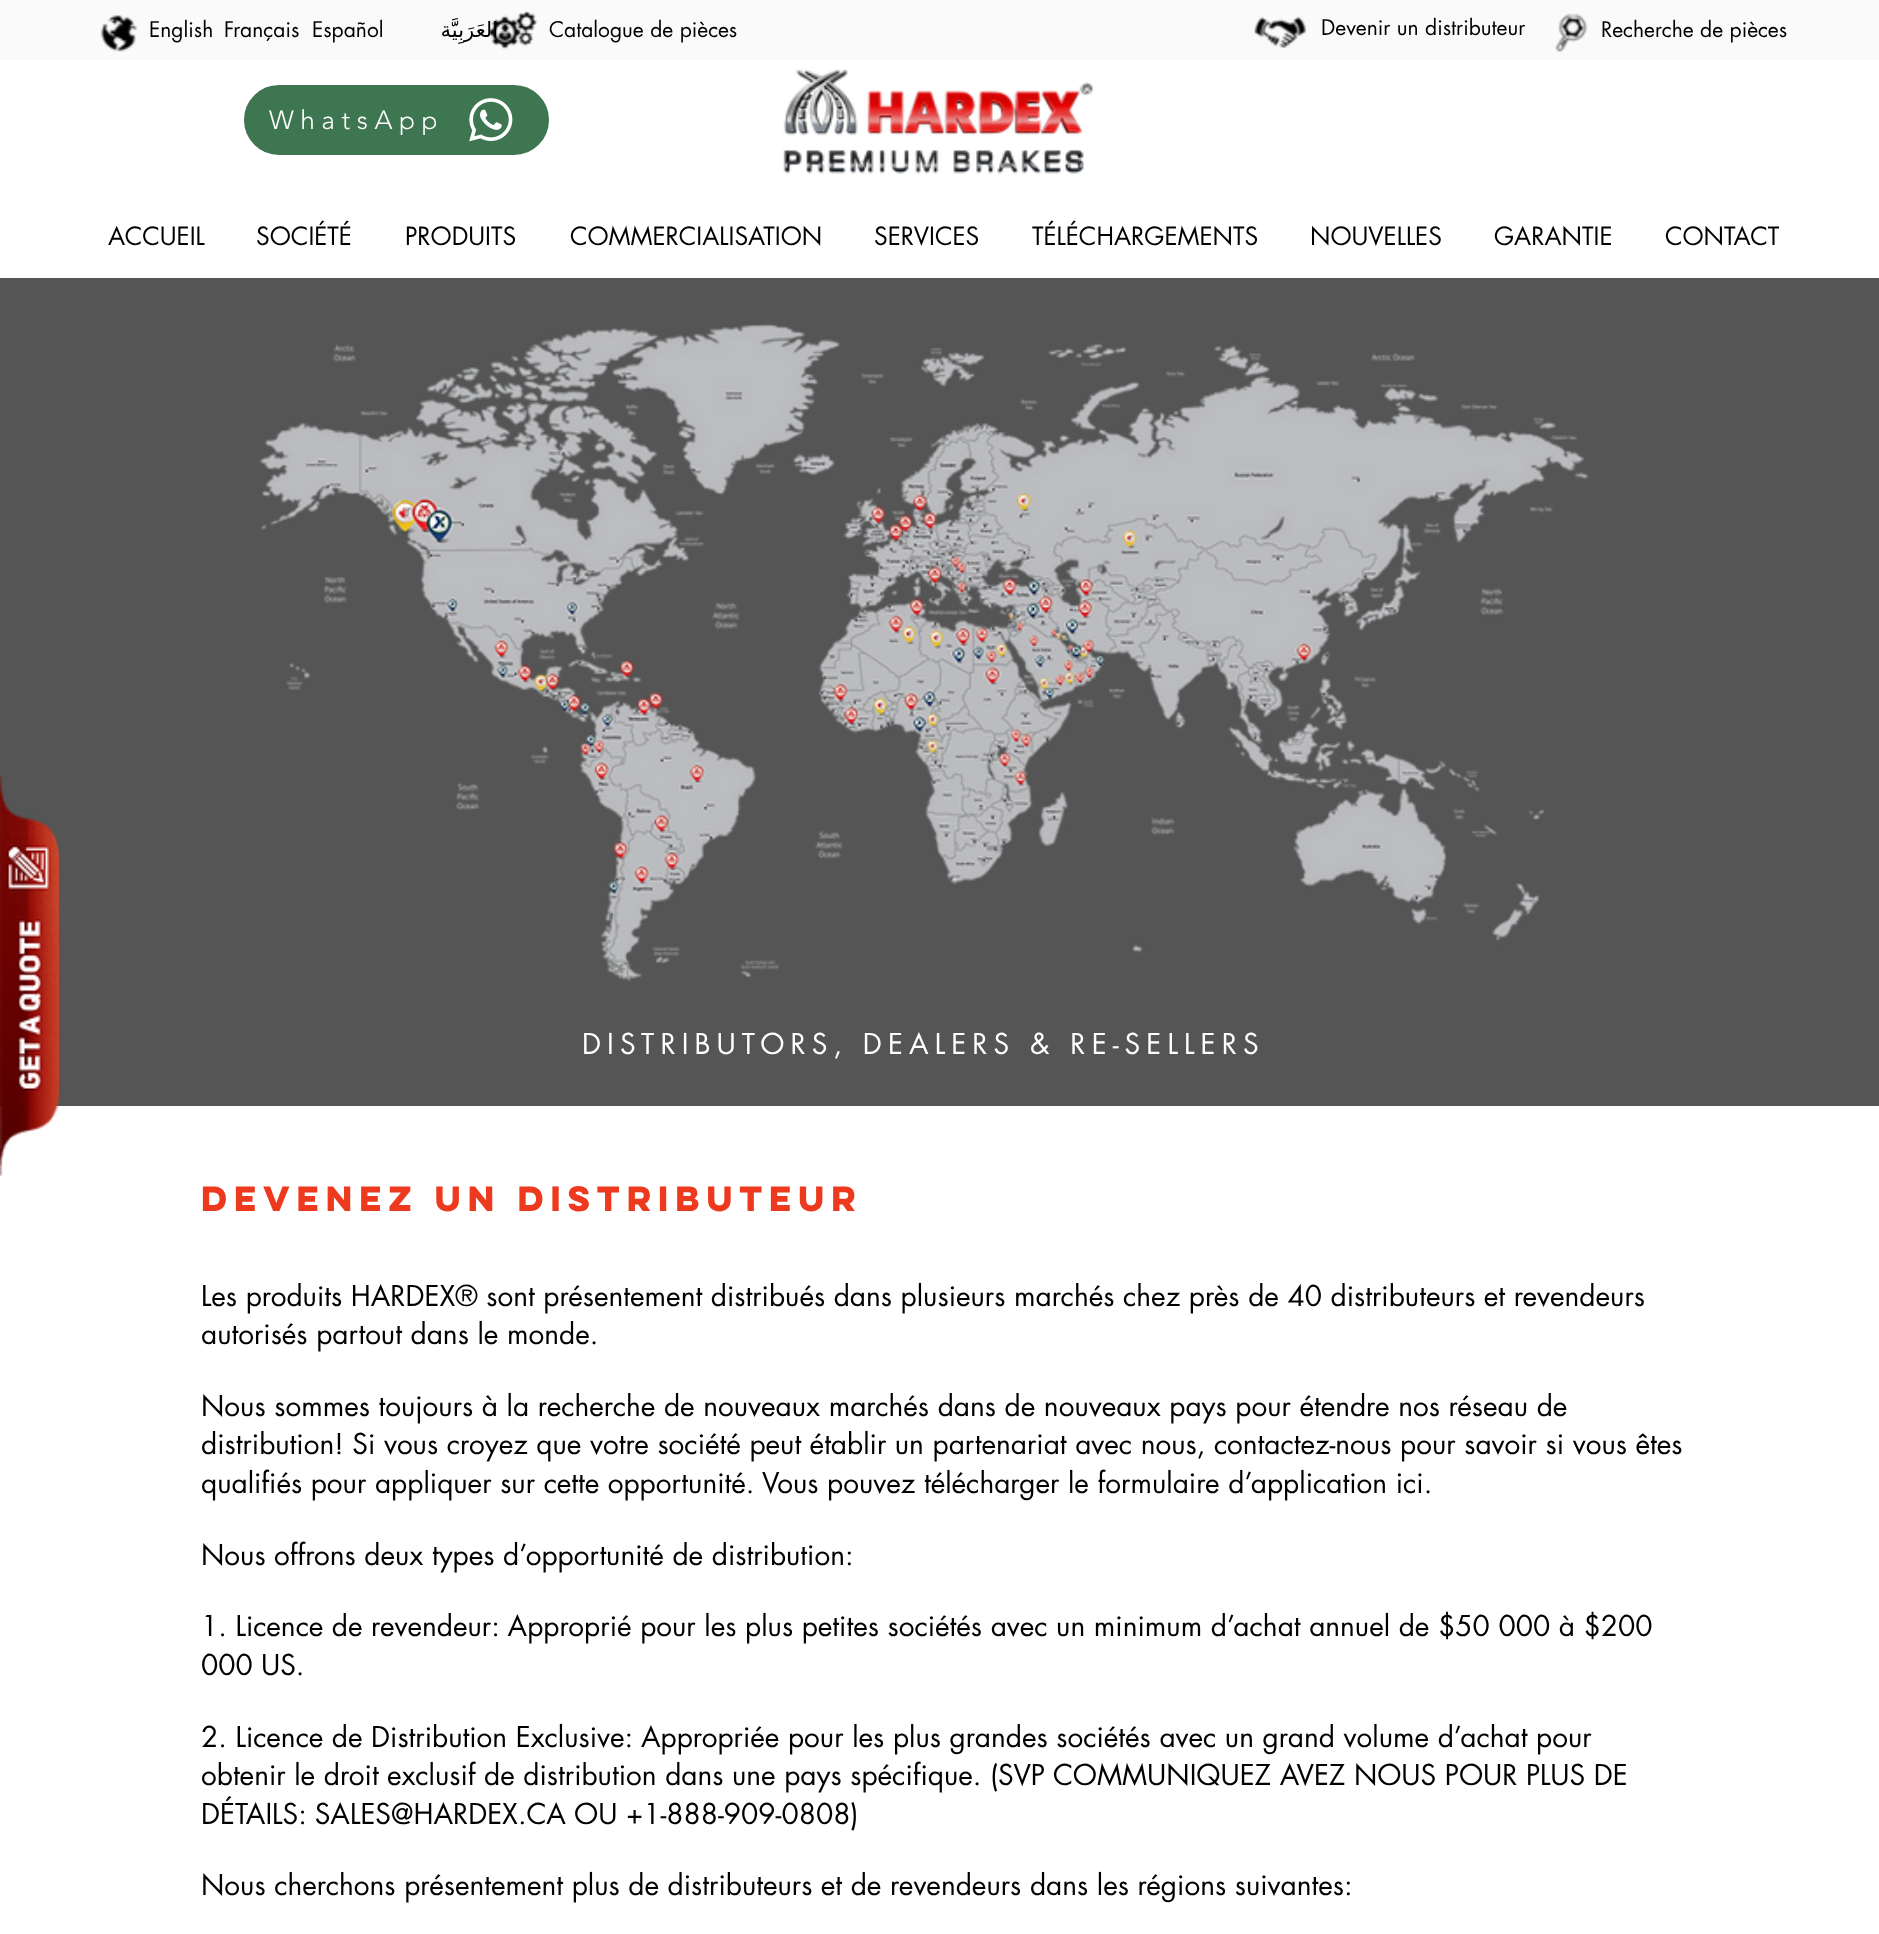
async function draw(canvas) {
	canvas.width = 1879;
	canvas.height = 1934;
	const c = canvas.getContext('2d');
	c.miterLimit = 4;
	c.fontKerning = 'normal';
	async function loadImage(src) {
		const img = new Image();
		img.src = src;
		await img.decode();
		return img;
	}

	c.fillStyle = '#fff';
	c.fillRect(0, 0, 1879, 1934);
	c.fillStyle = '#fafafa';
	c.fillRect(0, 0, 1879, 60);
	c.drawImage(await loadImage('img1.png'), 1555, 13, 33, 40);
	c.drawImage(await loadImage('img2.png'), 100, 15, 38, 37);
	c.font = '21px futura';
	c.fillStyle = '#000';
	for (const [text, x, y] of [
		['English', 149, 37],
		['Français', 224, 37],
		['Español', 312, 37],
	]) {
		c.fillText(text, x, y);
	}
	c.direction = 'rtl';
	c.font = '21px DejaVu Sans';
	c.fillText('العَرَبِيَّة', 498, 37);
	c.drawImage(await loadImage('img3.png'), 489, 11, 49, 39);
	c.direction = 'ltr';
	c.font = '21px futura';
	c.fillText('Catalogue de pièces', 549, 37);
	c.drawImage(await loadImage('img4.png'), 1254, 16, 52, 32);
	c.fillText('Devenir un distributeur', 1321, 35);
	c.fillText('Recherche de pièces', 1601, 37);
	c.fillStyle = '#3f7652';
	c.beginPath();
	c.roundRect(242, 83, 309, 74, 37);
	c.fill();
	c.strokeStyle = '#fff';
	c.lineWidth = 4;
	c.stroke();
	c.letterSpacing = '6.5px';
	c.font = '300 26.25px "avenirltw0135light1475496"';
	c.fillStyle = '#fff';
	c.fillText('WhatsApp', 269, 129);
	c.drawImage(await loadImage('img5.png'), 469, 98, 44, 44);
	c.drawImage(await loadImage('img6.png'), 783, 69, 311, 105);
	c.letterSpacing = '0px';
	c.font = '24.5px futura';
	c.fillStyle = '#000';
	for (const [text, x, y] of [
		['ACCUEIL', 108, 245],
		['SOCIÉTÉ', 256, 245],
		['PRODUITS', 405, 245],
		['COMMERCIALISATION', 570, 245],
		['SERVICES', 874, 245],
		['TÉLÉCHARGEMENTS', 1032, 245],
		['NOUVELLES', 1310, 245],
		['GARANTIE', 1494, 245],
		['CONTACT', 1665, 245],
	]) {
		c.fillText(text, x, y);
	}
	c.fillStyle = '#555';
	c.fillRect(0, 278, 1879, 828);
	c.drawImage(await loadImage('img7.png'), 0, 776, 59, 401);
	c.drawImage(await loadImage('img8.png'), 259, 323, 1330, 659);
	c.letterSpacing = '6.1px';
	c.font = '28px futura';
	c.fillStyle = '#fff';
	c.fillText('DISTRIBUTORS, DEALERS & RE-SELLERS', 582, 1054);
	c.letterSpacing = '0px';
	c.font = 'bold 31.5px "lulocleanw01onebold"';
	c.fillStyle = '#ed3a1e';
	c.fillText('DEVENEZ UN DISTRIBUTEUR', 201, 1211);
	c.font = '28px futura';
	c.fillStyle = '#000';
	for (const [text, x, y] of [
		['Les produits HARDEX® sont présentement distribués dans plusieurs marchés chez près de 40 distributeurs et revendeurs', 201, 1306],
		['autorisés partout dans le monde.', 201, 1344],
		['Nous sommes toujours à la recherche de nouveaux marchés dans de nouveaux pays pour étendre nos réseau de', 201, 1416],
		['distribution! Si vous croyez que votre société peut établir un partenariat avec nous, contactez-nous pour savoir si vous êtes', 201, 1454],
		['qualifiés pour appliquer sur cette opportunité. Vous pouvez télécharger le formulaire d’application ici.', 201, 1493],
		['Nous offrons deux types d’opportunité de distribution:', 201, 1565],
		['1. Licence de revendeur: Approprié pour les plus petites sociétés avec un minimum d’achat annuel de $50 000 à $200', 201, 1636],
		['000 US.', 201, 1675],
		['2. Licence de Distribution Exclusive: Appropriée pour les plus grandes sociétés avec un grand volume d’achat pour', 201, 1747],
		['obtenir le droit exclusif de distribution dans une pays spécifique. (SVP COMMUNIQUEZ AVEZ NOUS POUR PLUS DE', 201, 1785],
		['DÉTAILS: SALES@HARDEX.CA', 201, 1824],
		['OU +1-888-909-0808)', 574, 1824],
		['Nous cherchons présentement plus de distributeurs et de revendeurs dans les régions suivantes:', 201, 1895],
	]) {
		c.fillText(text, x, y);
	}
}

draw(document.querySelector('canvas'));
